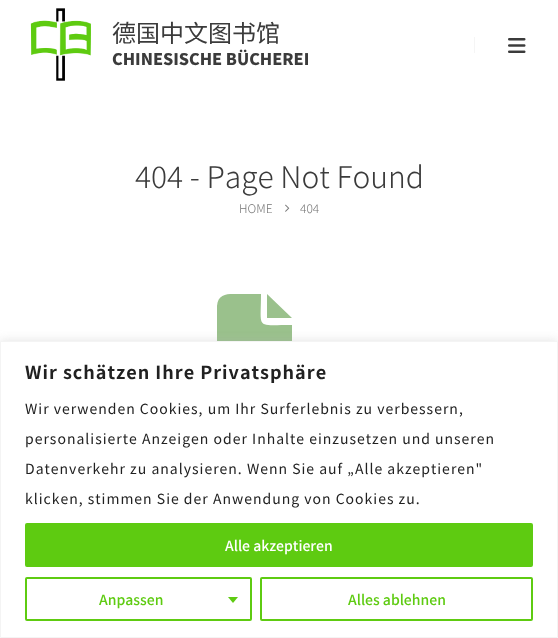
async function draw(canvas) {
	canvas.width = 558;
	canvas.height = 638;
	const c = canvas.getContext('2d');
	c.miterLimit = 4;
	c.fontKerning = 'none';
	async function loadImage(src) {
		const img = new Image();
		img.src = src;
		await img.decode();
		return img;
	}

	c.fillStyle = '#fff';
	c.fillRect(0, 0, 558, 638);
	c.drawImage(await loadImage('img1.png'), 30, 8, 61, 73);
	c.font = '24px Noto Sans SC';
	c.fillStyle = '#3b3b3b';
	c.fillText('德国中文图书馆', 112, 42);
	c.font = '900 16px Noto Sans SC';
	c.fillText('CHINESISCHE BÜCHEREI', 112, 65);
	c.fillStyle = '#f5f5f5';
	c.fillRect(474, 37, 1, 16);
	c.drawImage(await loadImage('img2.png'), 508, 38, 18, 15);
	c.font = '300 30px Noto Sans SC';
	c.fillStyle = '#3b3b3b';
	c.fillText('404 - Page Not Found', 135, 188);
	c.font = '300 12px Noto Sans SC';
	c.fillStyle = '#777';
	c.fillText('HOME', 239, 213);
	c.drawImage(await loadImage('img3.png'), 285, 204, 5, 8);
	c.fillText('404', 300, 213);
	c.fillStyle = '#9ac18c';
	c.beginPath();
	c.moveTo(217, 306);
	c.bezierCurveTo(218, 292, 230, 294, 240, 294);
	c.lineTo(261, 294);
	c.bezierCurveTo(261, 330, 255, 325, 292, 325);
	c.lineTo(292, 384);
	c.bezierCurveTo(289, 394, 280, 394, 271, 394);
	c.lineTo(238, 394);
	c.bezierCurveTo(229, 394, 220, 394, 217, 384);
	c.closePath();
	c.moveTo(292, 318);
	c.lineTo(267, 318);
	c.lineTo(267, 294);
	c.closePath();
	c.fill();
	c.fillStyle = '#acabab4d';
	c.filter = 'blur(5px)';
	c.beginPath();
	c.rect(0, 340, 558, 297);
	c.fill();
	c.filter = 'none';
	c.fillStyle = '#fff';
	c.beginPath();
	c.rect(0.5, 341.5, 557, 296);
	c.fill();
	c.strokeStyle = '#f4f4f4';
	c.stroke();
	c.letterSpacing = '1px';
	c.font = 'bold 18px Noto Sans SC';
	c.fillStyle = '#212121';
	c.fillText('Wir schätzen Ihre Privatsphäre', 25, 379);
	c.font = '14px Noto Sans SC';
	for (const [text, x, y] of [
		['Wir verwenden Cookies, um Ihr Surferlebnis zu verbessern,', 25, 414],
		['personalisierte Anzeigen oder Inhalte einzusetzen und unseren', 25, 444],
		['Datenverkehr zu analysieren. Wenn Sie auf „Alle akzeptieren"', 25, 474],
		['klicken, stimmen Sie der Anwendung von Cookies zu.', 25, 504],
	]) {
		c.fillText(text, x, y);
	}
	c.fillStyle = '#5ecb11';
	c.beginPath();
	c.roundRect(26, 524, 506, 42, 1);
	c.fill();
	c.strokeStyle = '#5ecb11';
	c.lineWidth = 2;
	c.stroke();
	c.letterSpacing = '0px';
	c.font = '500 14px Noto Sans SC';
	c.fillStyle = '#fff';
	c.fillText('Alle akzeptieren', 225, 551);
	c.beginPath();
	c.roundRect(26, 578, 225, 42, 1);
	c.stroke();
	c.fillStyle = '#5ecb11';
	c.fillText('Anpassen', 99, 605);
	c.beginPath();
	c.moveTo(228, 597);
	c.lineTo(238, 597);
	c.lineTo(233, 603);
	c.closePath();
	c.fill();
	c.beginPath();
	c.roundRect(261, 578, 271, 42, 1);
	c.stroke();
	c.fillText('Alles ablehnen', 348, 605);
}

draw(document.querySelector('canvas'));
